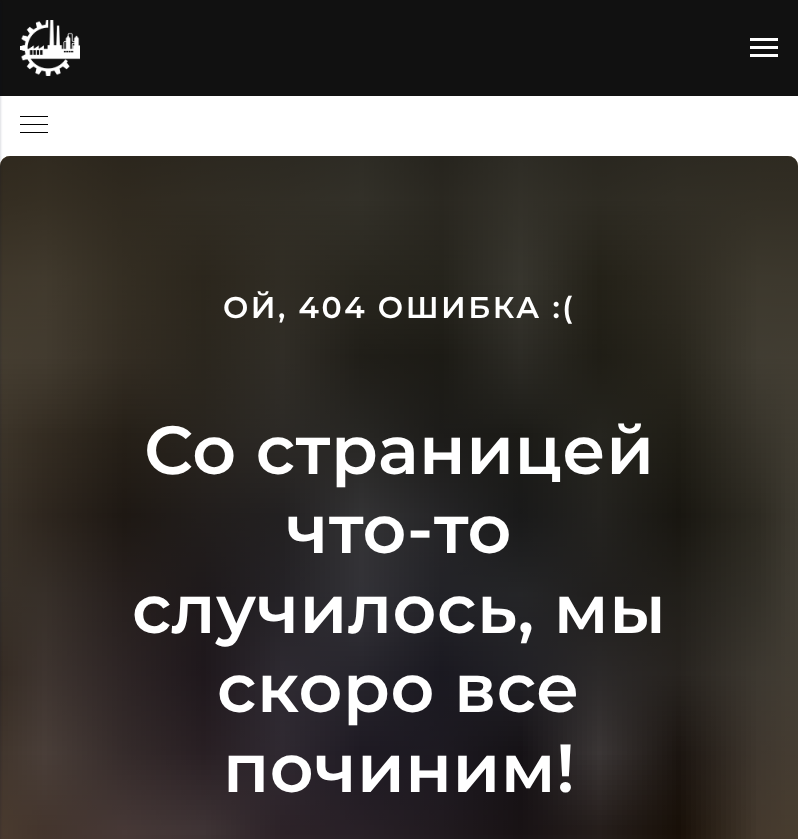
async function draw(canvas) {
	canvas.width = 798;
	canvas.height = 839;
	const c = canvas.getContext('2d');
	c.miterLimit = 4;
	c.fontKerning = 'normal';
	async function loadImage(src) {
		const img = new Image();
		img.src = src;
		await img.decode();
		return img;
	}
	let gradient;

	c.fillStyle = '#fff';
	c.fillRect(0, 0, 798, 839);
	c.fillStyle = '#111';
	c.fillRect(0, 0, 798, 96);
	c.drawImage(await loadImage('img1.png'), 20, 20, 60, 56);
	for (const [x, y, w, h, color] of [
		[750, 38, 28, 3, '#fff'],
		[750, 46, 28, 3, '#fff'],
		[750, 54, 28, 3, '#fff'],
	]) {
		c.fillStyle = color;
		c.fillRect(x, y, w, h);
	}
	c.fillStyle = '#000';
	c.beginPath();
	c.roundRect(0, 156, 798, 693, 10);
	c.fill();
	c.drawImage(await loadImage('img2.png'), 0, 156, 798, 683);
	gradient = c.createLinearGradient(399, 156, 399, 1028);
	gradient.addColorStop(0, '#000000cc');
	gradient.addColorStop(1, '#00000066');
	c.fillStyle = gradient;
	c.beginPath();
	c.roundRect(0, 156, 798, 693, 10);
	c.fill();
	c.fillStyle = '#000b3040';
	c.filter = 'blur(1.5px)';
	c.beginPath();
	c.rect(-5, 2, 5, 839);
	c.fill();
	c.filter = 'none';
	for (const [x, y, w, h, color] of [
		[20, 116, 28, 1, '#000'],
		[20, 124, 28, 1, '#000'],
		[20, 132, 28, 1, '#000'],
	]) {
		c.fillStyle = color;
		c.fillRect(x, y, w, h);
	}
	c.letterSpacing = '2.5px';
	c.font = '600 30px Montserrat';
	c.fillStyle = '#fff';
	c.fillText('ОЙ, 404 ОШИБКА :(', 223, 318);
	c.letterSpacing = '0.5px';
	c.font = '600 68px Montserrat';
	for (const [text, x, y] of [
		['Со страницей', 144, 474],
		['что-то', 286, 553],
		['случилось, мы', 132, 633],
		['скоро все', 217, 712],
		['починим!', 223, 792],
	]) {
		c.fillText(text, x, y);
	}
}

draw(document.querySelector('canvas'));
